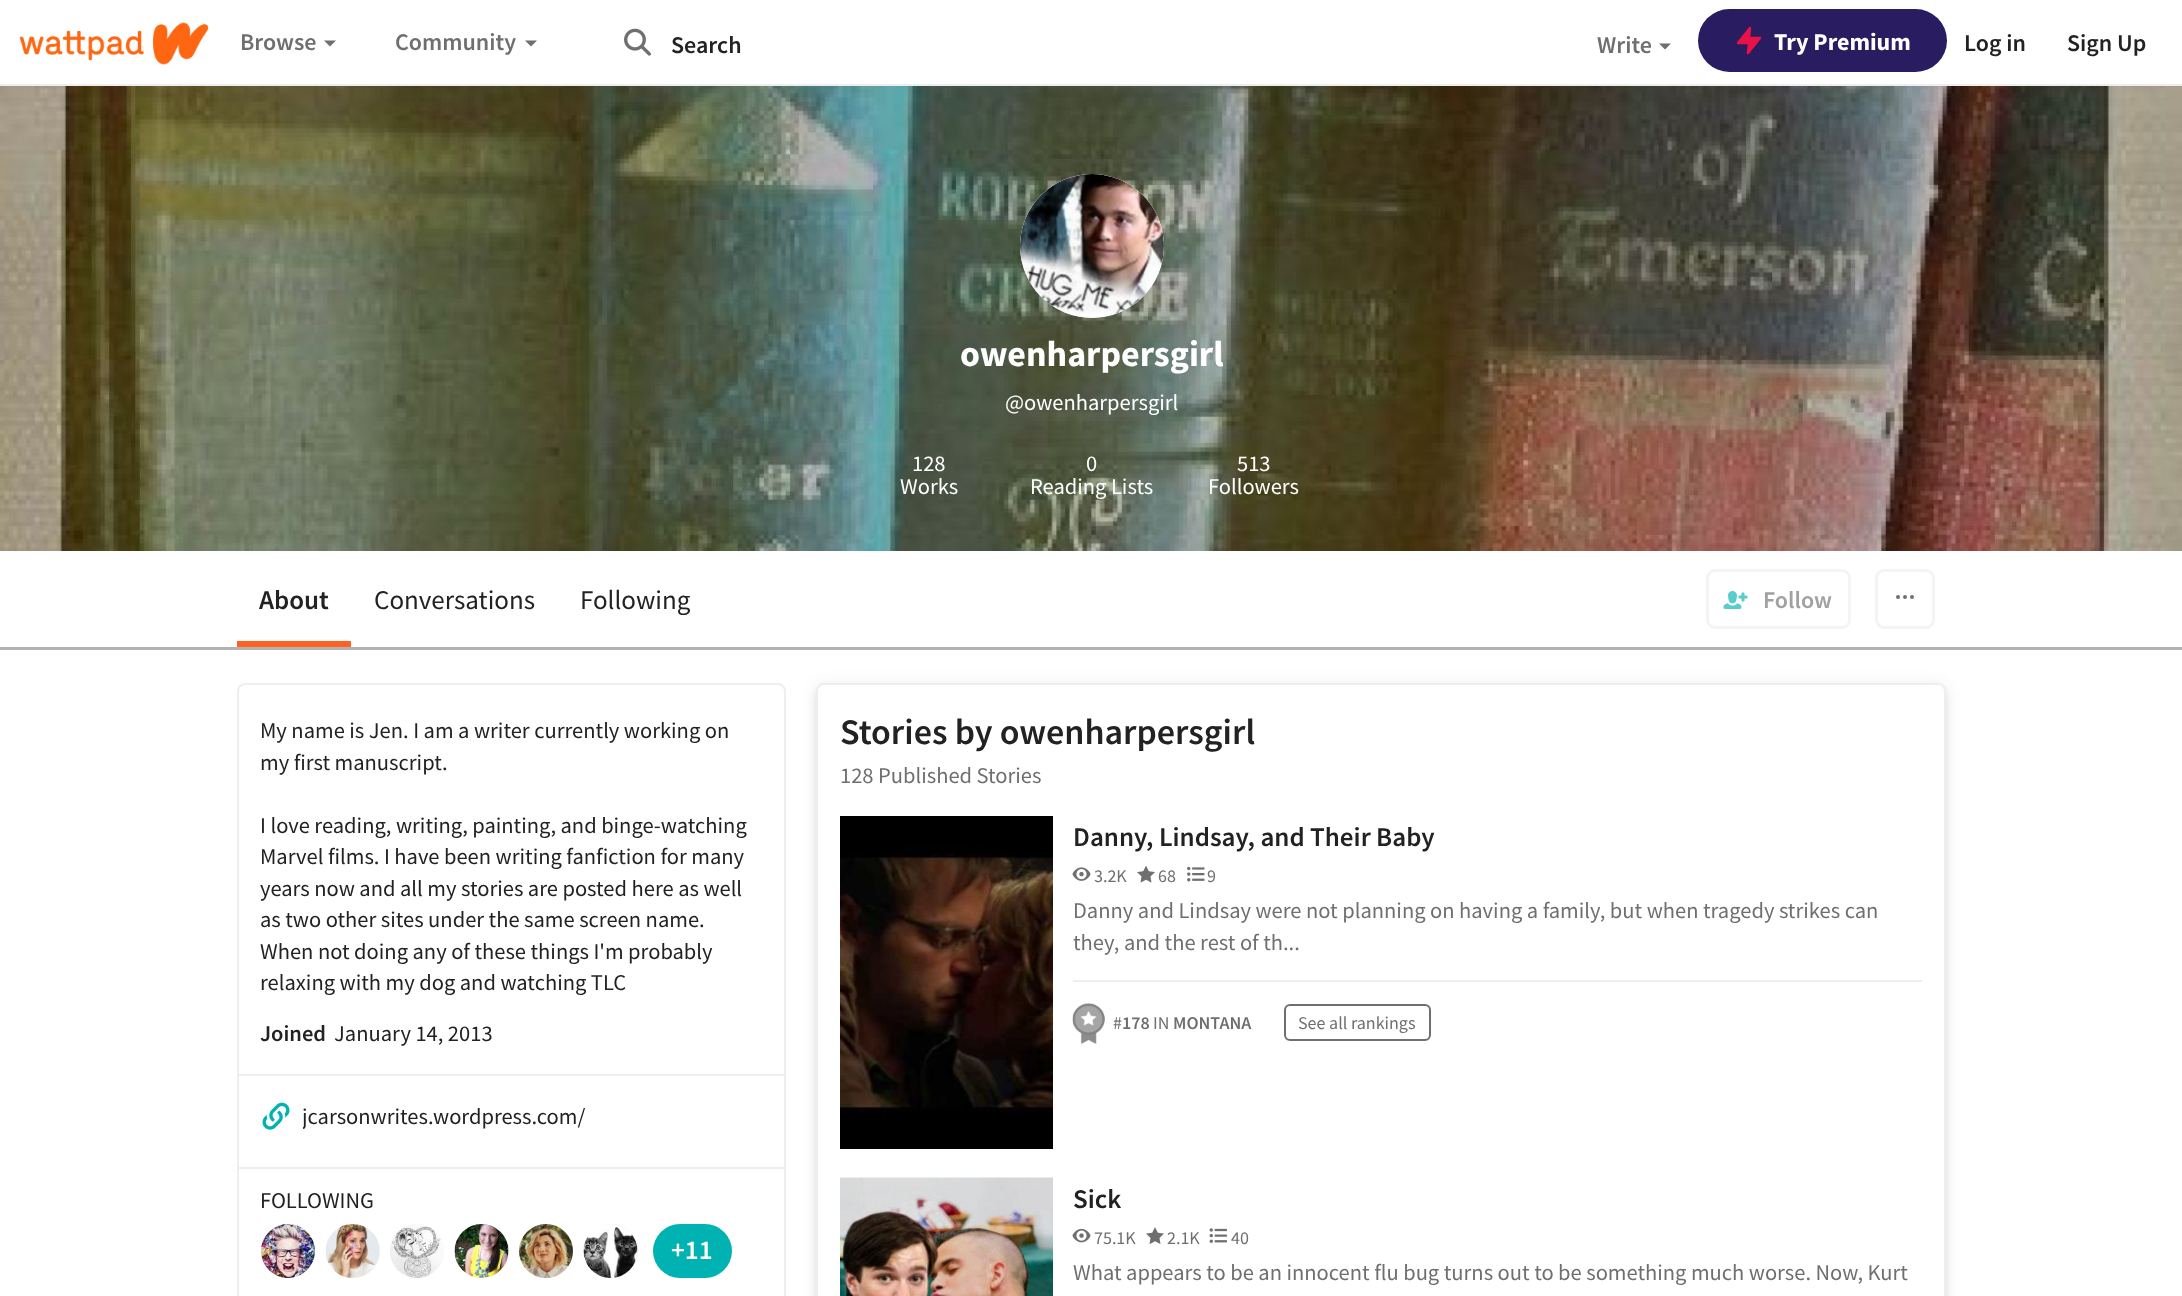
async function draw(canvas) {
	canvas.width = 2182;
	canvas.height = 1296;
	const c = canvas.getContext('2d');
	c.miterLimit = 4;
	c.fontKerning = 'normal';
	async function loadImage(src) {
		const img = new Image();
		img.src = src;
		await img.decode();
		return img;
	}

	c.fillStyle = '#fff';
	c.fillRect(0, 0, 2182, 1296);
	c.fillStyle = '#eee';
	c.fillRect(0, 84, 2182, 2);
	c.drawImage(await loadImage('img1.png'), 19, 22, 190, 43);
	c.font = '600 24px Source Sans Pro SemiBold';
	c.fillStyle = '#6f6f6f';
	c.fillText('Browse', 240, 50);
	c.beginPath();
	c.moveTo(324, 40.5);
	c.lineTo(336, 40.5);
	c.lineTo(330, 46.5);
	c.closePath();
	c.fill();
	c.fillText('Community', 395, 50);
	c.beginPath();
	c.moveTo(525, 40.5);
	c.lineTo(537, 40.5);
	c.lineTo(531, 46.5);
	c.closePath();
	c.fill();
	c.drawImage(await loadImage('img2.png'), 624, 28, 27, 28);
	c.fillStyle = '#222';
	c.fillText('Search', 671, 53);
	c.fillStyle = '#6f6f6f';
	c.fillText('Write', 1597, 53);
	c.beginPath();
	c.moveTo(1659, 43.5);
	c.lineTo(1671, 43.5);
	c.lineTo(1665, 49.5);
	c.closePath();
	c.fill();
	c.fillStyle = '#2a1c60';
	c.beginPath();
	c.roundRect(1698, 9, 249, 63, 31.5);
	c.fill();
	c.fillStyle = '#e81249';
	c.beginPath();
	c.moveTo(1750, 28);
	c.lineTo(1738, 43);
	c.lineTo(1749, 43);
	c.lineTo(1748, 53);
	c.lineTo(1760, 38);
	c.lineTo(1749, 38);
	c.closePath();
	c.fill();
	c.strokeStyle = '#e81249';
	c.lineWidth = 2.5;
	c.lineCap = 'round';
	c.lineJoin = 'round';
	c.stroke();
	c.font = 'bold 24px Source Sans Pro';
	c.fillStyle = '#fff';
	c.fillText('Try Premium', 1774, 50);
	c.font = '600 24px Source Sans Pro SemiBold';
	c.fillStyle = '#222';
	c.fillText('Log in', 1964, 51);
	c.fillText('Sign Up', 2067, 51);
	c.drawImage(await loadImage('img3.png'), 0, 86, 2182, 465);
	c.fillStyle = '#eee';
	c.beginPath();
	c.arc(1092, 246, 72, 0, 2 * Math.PI);
	c.fill();
	c.drawImage(await loadImage('img4.png'), 1020, 174, 144, 144);
	c.font = 'bold 36px Source Sans Pro';
	c.fillStyle = '#fff';
	c.fillText('owenharpersgirl', 960, 366);
	c.font = '22.5px Source Sans Pro';
	for (const [text, x, y] of [
		['@owenharpersgirl', 1005, 410],
		['128', 912, 471],
		['Works', 900, 494],
		['0', 1086, 471],
		['Reading Lists', 1030, 494],
		['513', 1237, 471],
		['Followers', 1208, 494],
	]) {
		c.fillText(text, x, y);
	}
	c.fillStyle = '#0000004d';
	c.beginPath();
	c.moveTo(0, 646);
	c.lineTo(0, 650);
	c.lineTo(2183, 650);
	c.lineTo(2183, 554);
	c.lineTo(2182, 554);
	c.lineTo(2182, 646);
	c.closePath();
	c.fill();
	c.fillStyle = '#fff';
	c.fillRect(0, 646, 2182, 1);
	c.fillStyle = '#ff6122';
	c.fillRect(237, 641, 114, 6);
	c.font = '600 27px Source Sans Pro SemiBold';
	c.fillStyle = '#222';
	c.fillText('About', 259, 609);
	c.font = '27px Source Sans Pro';
	c.fillText('Conversations', 374, 609);
	c.fillText('Following', 580, 609);
	c.beginPath();
	c.roundRect(1707.5, 570.5, 142, 57, 7.5);
	c.strokeStyle = '#f4f4f4';
	c.lineWidth = 3;
	c.lineJoin = 'miter';
	c.stroke();
	c.drawImage(await loadImage('img5.png'), 1723, 591, 25, 18);
	c.font = '600 24px Source Sans Pro SemiBold';
	c.fillStyle = '#a1a1a1';
	c.fillText('Follow', 1763, 608);
	c.beginPath();
	c.roundRect(1876.5, 570.5, 57, 57, 7.5);
	c.stroke();
	c.beginPath();
	c.arc(1898, 597, 1, 0, 2 * Math.PI);
	c.strokeStyle = '#6f6f6f';
	c.lineWidth = 2;
	c.stroke();
	c.beginPath();
	c.arc(1905, 597, 1, 0, 2 * Math.PI);
	c.stroke();
	c.beginPath();
	c.arc(1912, 597, 1, 0, 2 * Math.PI);
	c.stroke();
	c.beginPath();
	c.roundRect(238, 684, 547, 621, 7);
	c.strokeStyle = '#eee';
	c.stroke();
	c.font = '22.5px Source Sans Pro';
	c.fillStyle = '#222';
	for (const [text, x, y] of [
		['My name is Jen. I am a writer currently working on', 260, 738],
		['my first manuscript.', 260, 770],
		['I love reading, writing, painting, and binge-watching', 260, 833],
		['Marvel films. I have been writing fanfiction for many', 260, 864],
		['years now and all my stories are posted here as well', 260, 896],
		['as two other sites under the same screen name.', 260, 927],
		['When not doing any of these things I\'m probably', 260, 959],
		['relaxing with my dog and watching TLC', 260, 990],
	]) {
		c.fillText(text, x, y);
	}
	c.font = '600 22.5px Source Sans Pro SemiBold';
	c.fillText('Joined', 260, 1041);
	c.font = '22.5px Source Sans Pro';
	c.fillText('January 14, 2013', 334, 1041);
	c.fillStyle = '#eee';
	c.fillRect(239, 1074, 546, 2);
	c.drawImage(await loadImage('img6.png'), 262, 1102, 28, 28);
	c.save();
	c.beginPath();
	c.rect(303, 1098, 452, 36);
	c.clip();
	c.fillStyle = '#222';
	c.fillText('jcarsonwrites.wordpress.com/', 302, 1124);
	c.restore();
	c.fillRect(239, 1167, 546, 2);
	c.fillStyle = '#222';
	c.fillText('FOLLOWING', 260, 1208);
	c.fillStyle = '#eee';
	c.beginPath();
	c.arc(288, 1251, 27, 0, 2 * Math.PI);
	c.fill();
	c.drawImage(await loadImage('img7.png'), 261, 1224, 54, 54);
	c.beginPath();
	c.arc(353, 1251, 27, 0, 2 * Math.PI);
	c.fill();
	c.drawImage(await loadImage('img8.png'), 325, 1224, 54, 54);
	c.beginPath();
	c.arc(417, 1251, 27, 0, 2 * Math.PI);
	c.fill();
	c.drawImage(await loadImage('img9.png'), 390, 1224, 54, 54);
	c.beginPath();
	c.arc(482, 1251, 27, 0, 2 * Math.PI);
	c.fill();
	c.drawImage(await loadImage('img10.png'), 454, 1224, 55, 54);
	c.beginPath();
	c.arc(546, 1251, 27, 0, 2 * Math.PI);
	c.fill();
	c.drawImage(await loadImage('img11.png'), 519, 1224, 54, 54);
	c.beginPath();
	c.arc(611, 1251, 27, 0, 2 * Math.PI);
	c.fill();
	c.drawImage(await loadImage('img12.png'), 583, 1224, 55, 54);
	c.fillStyle = '#00b2b2';
	c.beginPath();
	c.roundRect(653, 1224, 79, 54, 27);
	c.fill();
	c.font = '600 27px Source Sans Pro SemiBold';
	c.fillStyle = '#fff';
	c.fillText('+11', 671, 1259);
	c.fillStyle = '#2222221a';
	c.filter = 'blur(4px)';
	c.beginPath();
	c.roundRect(816, 689, 1130, 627, 8);
	c.fill();
	c.filter = 'none';
	c.fillStyle = '#22222214';
	c.filter = 'blur(7.5px)';
	c.beginPath();
	c.roundRect(816, 684, 1130, 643, 8);
	c.fill();
	c.filter = 'none';
	c.fillStyle = '#fff';
	c.beginPath();
	c.roundRect(817, 684, 1128, 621, 7);
	c.fill();
	c.stroke();
	c.font = '600 36px Source Sans Pro SemiBold';
	c.fillStyle = '#222';
	c.fillText('Stories by owenharpersgirl', 840, 744);
	c.font = '22.5px Source Sans Pro';
	c.fillStyle = '#6f6f6f';
	c.fillText('128 Published Stories', 840, 783);
	c.drawImage(await loadImage('img13.png'), 840, 816, 213, 333);
	c.font = '600 27px Source Sans Pro SemiBold';
	c.fillStyle = '#222';
	c.fillText('Danny, Lindsay, and Their Baby', 1073, 846);
	c.drawImage(await loadImage('img14.png'), 1072, 867, 19, 14);
	c.font = '18px Source Sans Pro';
	c.fillStyle = '#6f6f6f';
	c.fillText('3.2K', 1094, 882);
	c.drawImage(await loadImage('img15.png'), 1137, 865, 18, 18);
	c.fillText('68', 1158, 882);
	c.drawImage(await loadImage('img16.png'), 1187, 866, 18, 16);
	c.fillText('9', 1207, 882);
	c.font = '22.5px Source Sans Pro';
	c.fillText('Danny and Lindsay were not planning on having a family, but when tragedy strikes can', 1073, 918);
	c.fillText('they, and the rest of th...', 1073, 950);
	c.fillStyle = '#eee';
	c.fillRect(1073, 980, 849, 2);
	c.drawImage(await loadImage('img17.png'), 1072, 1003, 33, 41);
	c.font = '18px Source Sans Pro';
	c.fillStyle = '#6f6f6f';
	c.fillText('#', 1113, 1029);
	c.font = '600 18px Source Sans Pro SemiBold';
	c.fillText('178', 1122, 1029);
	c.font = '18px Source Sans Pro';
	c.fillText('IN', 1153, 1029);
	c.font = '600 18px Source Sans Pro SemiBold';
	c.fillText('MONTANA', 1173, 1029);
	c.beginPath();
	c.roundRect(1285, 1005, 145, 35, 5);
	c.strokeStyle = '#6f6f6f';
	c.stroke();
	c.font = '18px Source Sans Pro';
	c.fillText('See all rankings', 1298, 1029);
	c.drawImage(await loadImage('img18.png'), 840, 1177, 213, 119);
	c.font = '600 27px Source Sans Pro SemiBold';
	c.fillStyle = '#222';
	c.fillText('Sick', 1073, 1208);
	c.drawImage(await loadImage('img19.png'), 1072, 1228, 19, 15);
	c.font = '18px Source Sans Pro';
	c.fillStyle = '#6f6f6f';
	c.fillText('75.1K', 1094, 1244);
	c.drawImage(await loadImage('img20.png'), 1146, 1227, 18, 17);
	c.fillText('2.1K', 1167, 1244);
	c.drawImage(await loadImage('img21.png'), 1209, 1228, 18, 15);
	c.fillText('40', 1231, 1244);
	c.font = '22.5px Source Sans Pro';
	c.fillText('What appears to be an innocent flu bug turns out to be something much worse. Now, Kurt', 1073, 1280);
}

draw(document.querySelector('canvas'));
